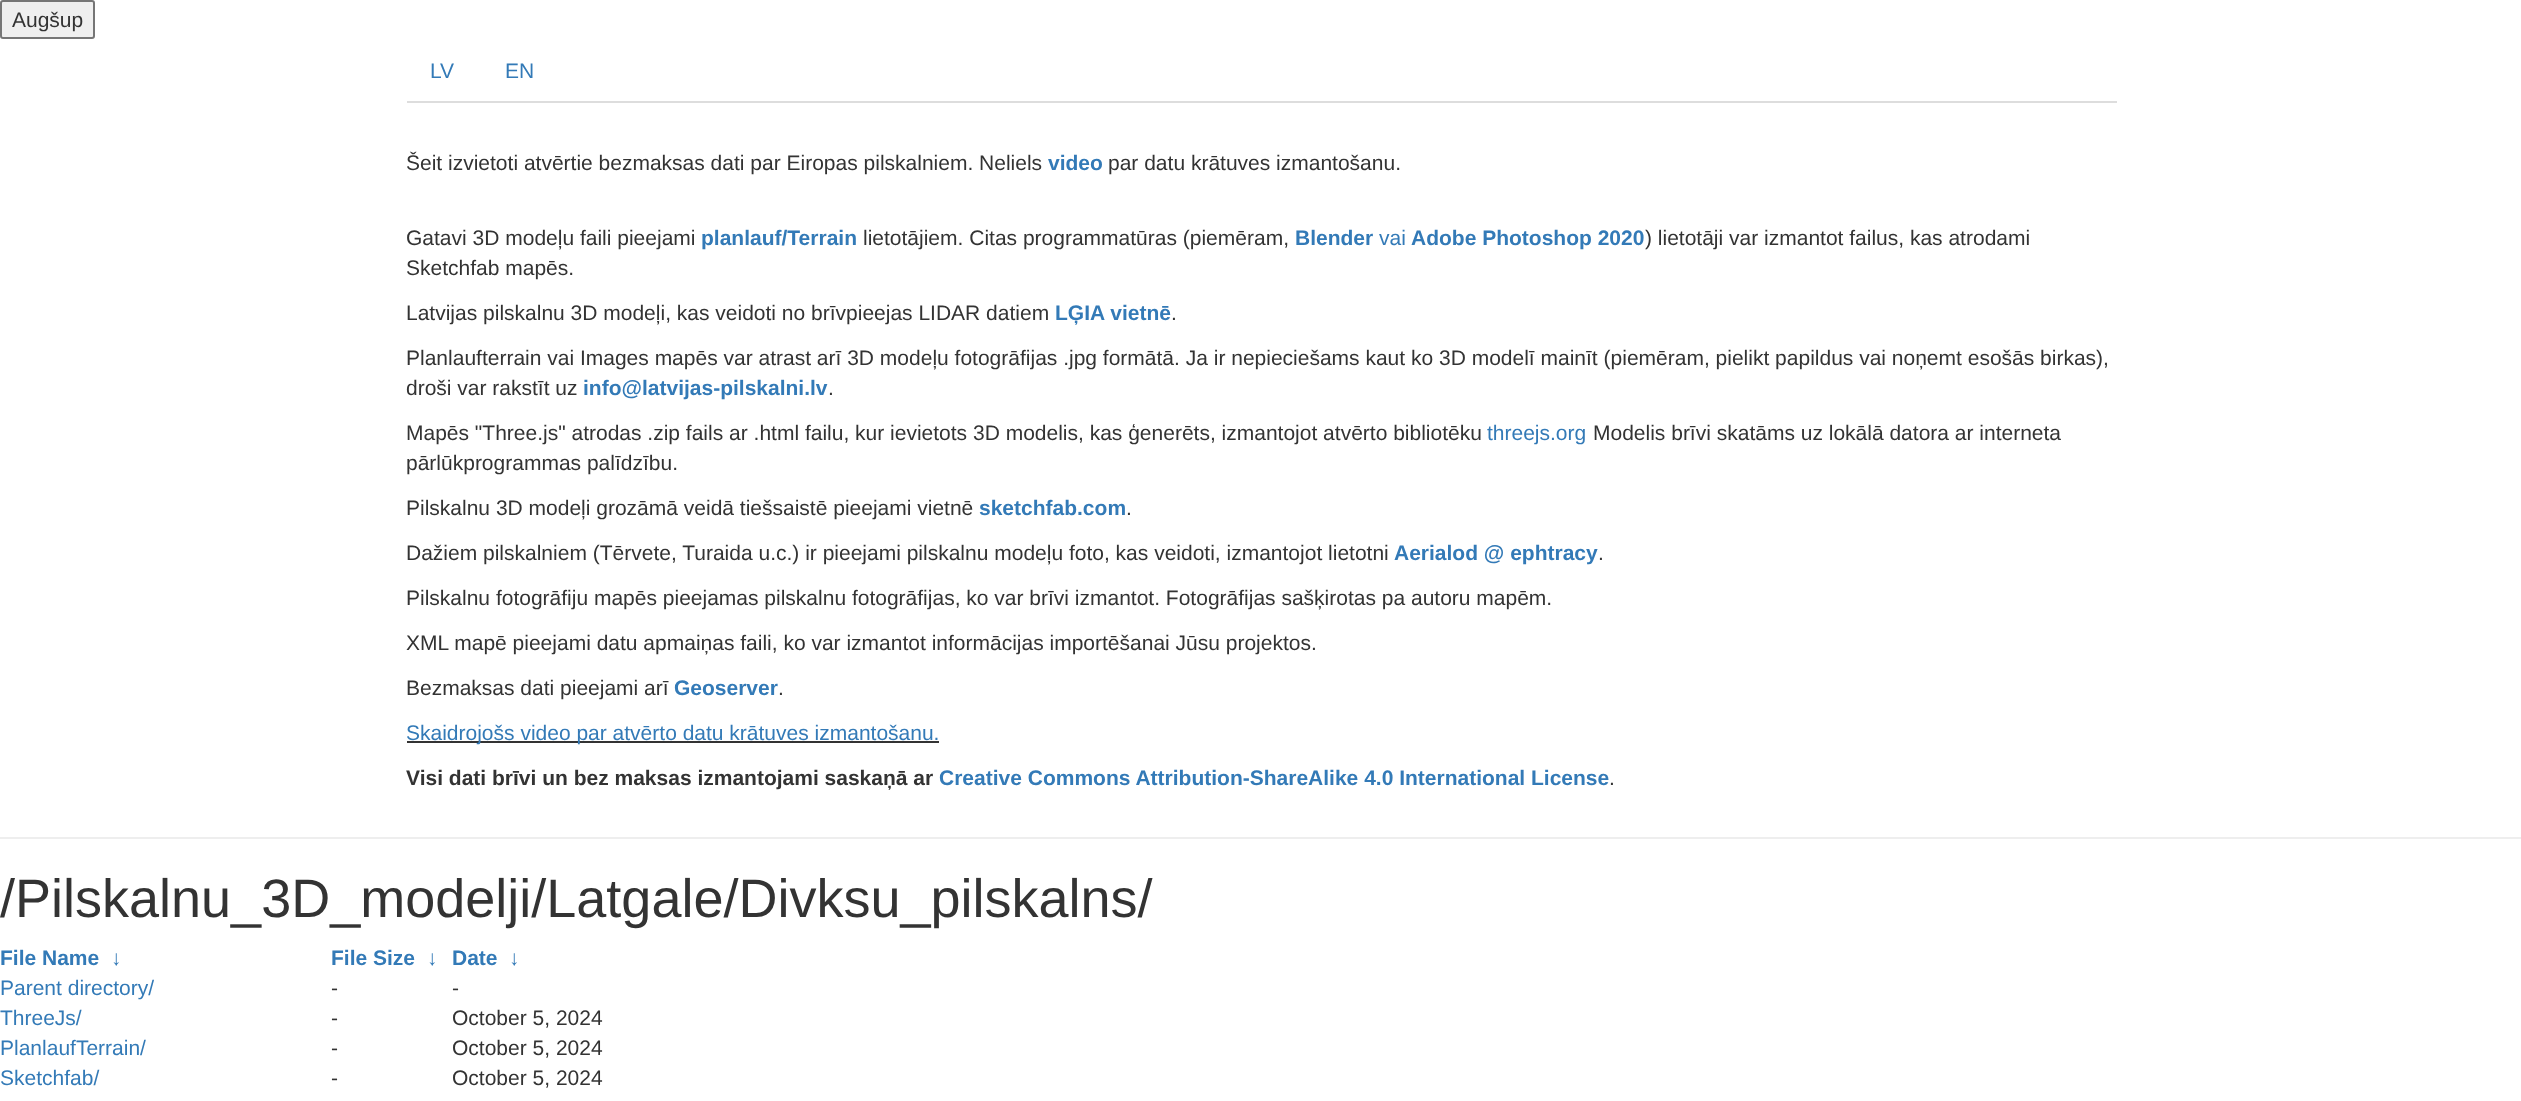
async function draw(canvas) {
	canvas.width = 2521;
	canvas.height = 1101;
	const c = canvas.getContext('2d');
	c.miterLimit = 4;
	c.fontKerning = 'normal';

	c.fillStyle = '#fff';
	c.fillRect(0, 0, 2521, 1101);
	c.fillStyle = '#efefef';
	c.beginPath();
	c.roundRect(1, 1, 93, 37, 2);
	c.fill();
	c.strokeStyle = '#767676';
	c.lineWidth = 2;
	c.stroke();
	c.font = '21px Liberation Sans';
	c.fillStyle = '#333';
	c.fillText('Augšup', 12, 27);
	c.fillStyle = '#ddd';
	c.fillRect(407, 101, 1710, 2);
	c.fillStyle = '#337ab7';
	c.fillText('LV', 430, 78);
	c.fillText('EN', 505, 78);
	c.fillStyle = '#333';
	c.fillText('Šeit izvietoti atvērtie bezmaksas dati par Eiropas pilskalniem. Neliels', 406, 170);
	c.font = 'bold 21px Liberation Sans';
	c.fillStyle = '#337ab7';
	c.fillText('video', 1048, 170);
	c.font = '21px Liberation Sans';
	c.fillStyle = '#333';
	c.fillText('par datu krātuves izmantošanu.', 1108, 170);
	c.fillText('Gatavi 3D modeļu faili pieejami', 406, 245);
	c.font = 'bold 21px Liberation Sans';
	c.fillStyle = '#337ab7';
	c.fillText('planlauf/Terrain', 701, 245);
	c.font = '21px Liberation Sans';
	c.fillStyle = '#333';
	c.fillText('lietotājiem. Citas programmatūras (piemēram,', 863, 245);
	c.font = 'bold 21px Liberation Sans';
	c.fillStyle = '#337ab7';
	c.fillText('Blender', 1295, 245);
	c.font = '21px Liberation Sans';
	c.fillText('vai', 1379, 245);
	c.font = 'bold 21px Liberation Sans';
	c.fillText('Adobe Photoshop 2020', 1411, 245);
	c.font = '21px Liberation Sans';
	c.fillStyle = '#333';
	for (const [text, x, y] of [
		[') lietotāji var izmantot failus, kas atrodami', 1645, 245],
		['Sketchfab mapēs.', 406, 275],
		['Latvijas pilskalnu 3D modeļi, kas veidoti no brīvpieejas LIDAR datiem', 406, 320],
	]) {
		c.fillText(text, x, y);
	}
	c.font = 'bold 21px Liberation Sans';
	c.fillStyle = '#337ab7';
	c.fillText('LĢIA vietnē', 1055, 320);
	c.font = '21px Liberation Sans';
	c.fillStyle = '#333';
	for (const [text, x, y] of [
		['.', 1171, 320],
		['Planlaufterrain vai Images mapēs var atrast arī 3D modeļu fotogrāfijas .jpg formātā. Ja ir nepieciešams kaut ko 3D modelī mainīt (piemēram, pielikt papildus vai noņemt esošās birkas),', 406, 365],
		['droši var rakstīt uz', 406, 395],
	]) {
		c.fillText(text, x, y);
	}
	c.font = 'bold 21px Liberation Sans';
	c.fillStyle = '#337ab7';
	c.fillText('info@latvijas-pilskalni.lv', 583, 395);
	c.font = '21px Liberation Sans';
	c.fillStyle = '#333';
	c.fillText('.', 828, 395);
	c.fillText('Mapēs "Three.js" atrodas .zip fails ar .html failu, kur ievietots 3D modelis, kas ģenerēts, izmantojot atvērto bibliotēku', 406, 440);
	c.fillStyle = '#337ab7';
	c.fillText('threejs.org', 1487, 440);
	c.fillStyle = '#333';
	for (const [text, x, y] of [
		['Modelis brīvi skatāms uz lokālā datora ar interneta', 1593, 440],
		['pārlūkprogrammas palīdzību.', 406, 470],
		['Pilskalnu 3D modeļi grozāmā veidā tiešsaistē pieejami vietnē', 406, 515],
	]) {
		c.fillText(text, x, y);
	}
	c.font = 'bold 21px Liberation Sans';
	c.fillStyle = '#337ab7';
	c.fillText('sketchfab.com', 979, 515);
	c.font = '21px Liberation Sans';
	c.fillStyle = '#333';
	c.fillText('.', 1126, 515);
	c.fillText('Dažiem pilskalniem (Tērvete, Turaida u.c.) ir pieejami pilskalnu modeļu foto, kas veidoti, izmantojot lietotni', 406, 560);
	c.font = 'bold 21px Liberation Sans';
	c.fillStyle = '#337ab7';
	c.fillText('Aerialod @ ephtracy', 1394, 560);
	c.font = '21px Liberation Sans';
	c.fillStyle = '#333';
	for (const [text, x, y] of [
		['.', 1598, 560],
		['Pilskalnu fotogrāfiju mapēs pieejamas pilskalnu fotogrāfijas, ko var brīvi izmantot. Fotogrāfijas sašķirotas pa autoru mapēm.', 406, 605],
		['XML mapē pieejami datu apmaiņas faili, ko var izmantot informācijas importēšanai Jūsu projektos.', 406, 650],
		['Bezmaksas dati pieejami arī', 406, 695],
	]) {
		c.fillText(text, x, y);
	}
	c.font = 'bold 21px Liberation Sans';
	c.fillStyle = '#337ab7';
	c.fillText('Geoserver', 674, 695);
	c.font = '21px Liberation Sans';
	c.fillStyle = '#333';
	c.fillText('.', 778, 695);
	c.fillRect(407, 741, 532, 2);
	c.fillStyle = '#337ab7';
	c.fillText('Skaidrojošs video par atvērto datu krātuves izmantošanu.', 406, 740);
	c.font = 'bold 21px Liberation Sans';
	c.fillStyle = '#333';
	c.fillText('Visi dati brīvi un bez maksas izmantojami saskaņā ar', 406, 785);
	c.fillStyle = '#337ab7';
	c.fillText('Creative Commons Attribution-ShareAlike 4.0 International License', 939, 785);
	c.font = '21px Liberation Sans';
	c.fillStyle = '#333';
	c.fillText('.', 1609, 785);
	c.fillStyle = '#eee';
	c.fillRect(0, 837, 2521, 2);
	c.font = '54px Liberation Sans';
	c.fillStyle = '#333';
	c.fillText('/Pilskalnu_3D_modelji/Latgale/Divksu_pilskalns/', 0, 917);
	c.font = 'bold 21px Liberation Sans';
	c.fillStyle = '#337ab7';
	for (const [text, x, y] of [
		['File Name', 0, 965],
		['↓', 111, 965],
		['File Size', 331, 965],
		['↓', 427, 965],
		['Date', 452, 965],
		['↓', 509, 965],
	]) {
		c.fillText(text, x, y);
	}
	c.font = '21px Liberation Sans';
	c.fillText('Parent directory/', 0, 995);
	c.fillStyle = '#333';
	c.fillText('-', 331, 995);
	c.fillText('-', 452, 995);
	c.fillStyle = '#337ab7';
	c.fillText('ThreeJs/', 0, 1025);
	c.fillStyle = '#333';
	c.fillText('-', 331, 1025);
	c.fillText('October 5, 2024', 452, 1025);
	c.fillStyle = '#337ab7';
	c.fillText('PlanlaufTerrain/', 0, 1055);
	c.fillStyle = '#333';
	c.fillText('-', 331, 1055);
	c.fillText('October 5, 2024', 452, 1055);
	c.fillStyle = '#337ab7';
	c.fillText('Sketchfab/', 0, 1085);
	c.fillStyle = '#333';
	c.fillText('-', 331, 1085);
	c.fillText('October 5, 2024', 452, 1085);
}

draw(document.querySelector('canvas'));
